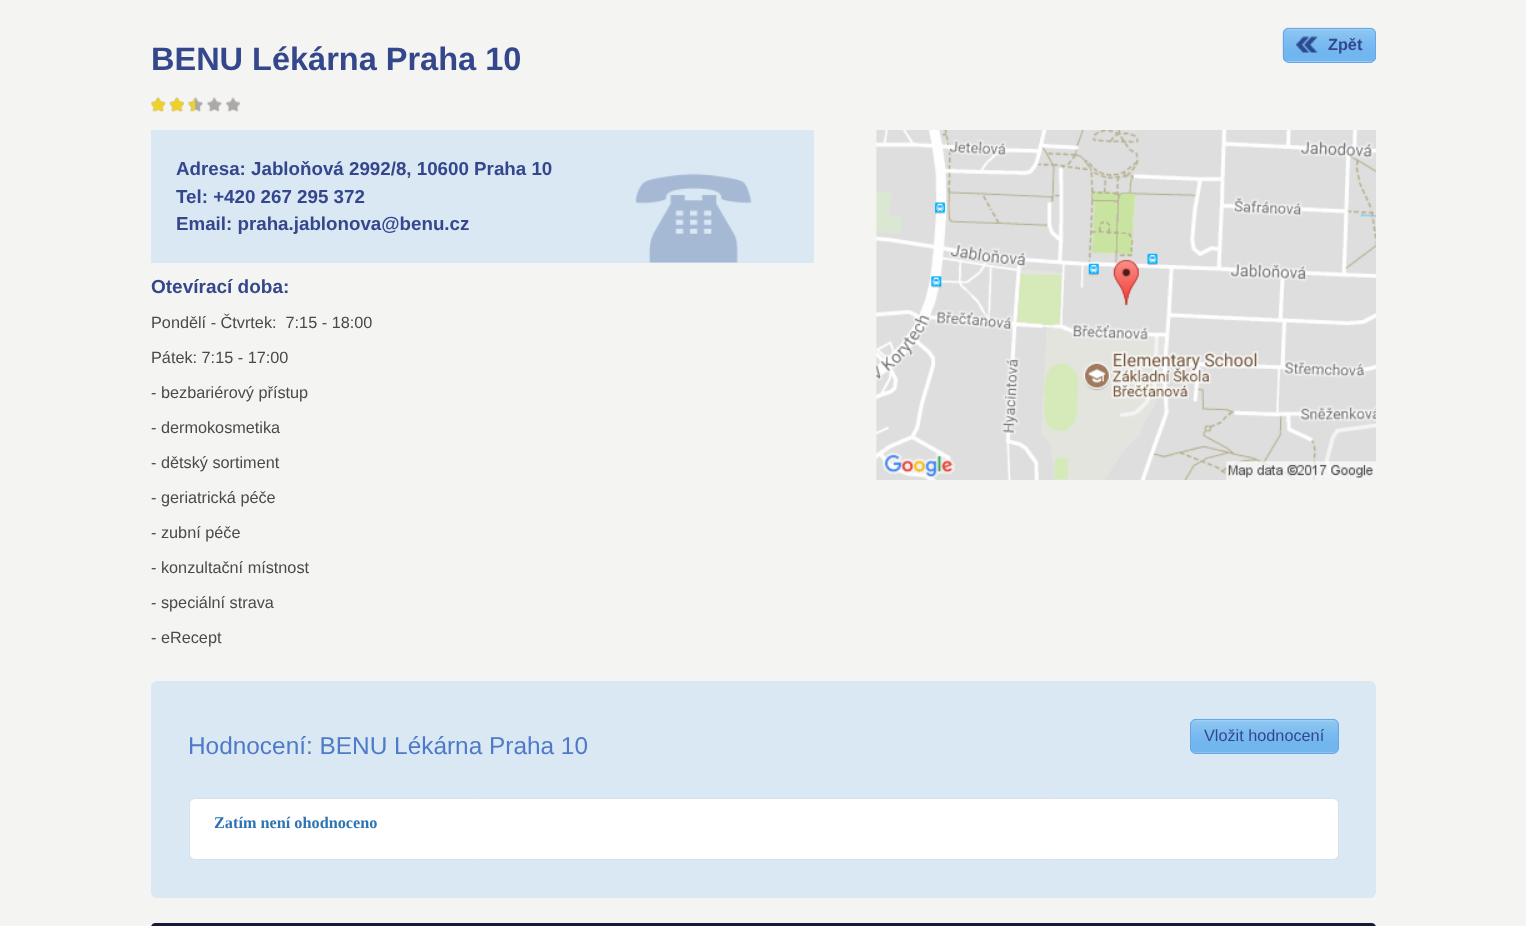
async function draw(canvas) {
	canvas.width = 1526;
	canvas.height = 926;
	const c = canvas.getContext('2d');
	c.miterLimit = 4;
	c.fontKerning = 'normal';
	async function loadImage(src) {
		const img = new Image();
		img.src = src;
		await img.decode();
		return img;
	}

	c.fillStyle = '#f4f4f2';
	c.fillRect(0, 0, 1526, 926);
	c.font = 'bold 32.5px Liberation Sans';
	c.fillStyle = '#35478c';
	c.fillText('BENU Lékárna Praha 10', 151, 70);
	c.drawImage(await loadImage('img1.png'), 1282, 27, 94, 36);
	c.beginPath();
	c.roundRect(1283.5, 28.5, 92, 34, 5.5);
	c.strokeStyle = '#6ba3e7';
	c.stroke();
	c.drawImage(await loadImage('img2.png'), 1296, 36, 22, 17);
	c.font = 'bold 16.25px Liberation Sans';
	c.fillText('Zpět', 1328, 50);
	c.drawImage(await loadImage('img3.png'), 151, 97, 89, 15);
	c.drawImage(await loadImage('img4.png'), 151, 97, 44, 15);
	c.fillStyle = '#dae8f4';
	c.fillRect(151, 130, 663, 133);
	c.drawImage(await loadImage('img5.png'), 635, 173, 117, 90);
	c.font = 'bold 18.75px Liberation Sans';
	c.fillStyle = '#35478c';
	for (const [text, x, y] of [
		['Adresa: Jabloňová 2992/8, 10600 Praha 10', 176, 175],
		['Tel: +420 267 295 372', 176, 203],
		['Email: praha.jablonova@benu.cz', 176, 230],
	]) {
		c.fillText(text, x, y);
	}
	c.font = 'bold 19px Liberation Sans';
	c.fillText('Otevírací doba:', 151, 293);
	c.font = '16.25px Liberation Sans';
	c.fillStyle = '#494a4a';
	for (const [text, x, y] of [
		['Pondělí - Čtvrtek:  7:15 - 18:00', 151, 328],
		['Pátek: 7:15 - 17:00', 151, 363],
		['- bezbariérový přístup', 151, 398],
		['- dermokosmetika', 151, 433],
		['- dětský sortiment', 151, 468],
		['- geriatrická péče', 151, 503],
		['- zubní péče', 151, 538],
		['- konzultační místnost', 151, 573],
		['- speciální strava', 151, 608],
		['- eRecept', 151, 643],
	]) {
		c.fillText(text, x, y);
	}
	c.drawImage(await loadImage('img6.png'), 876, 130, 500, 350);
	c.fillStyle = '#dae8f4';
	c.beginPath();
	c.roundRect(151, 681, 1225, 217, 6);
	c.fill();
	c.font = '24.4px Liberation Sans';
	c.fillStyle = '#4e7ac7';
	c.fillText('Hodnocení: BENU Lékárna Praha 10', 188, 754);
	c.drawImage(await loadImage('img7.png'), 1190, 718, 149, 36);
	c.beginPath();
	c.roundRect(1190.5, 719.5, 148, 34, 5.5);
	c.stroke();
	c.font = '16.25px Liberation Sans';
	c.fillStyle = '#35478c';
	c.fillText('Vložit hodnocení', 1204, 741);
	c.fillStyle = '#fff';
	c.beginPath();
	c.roundRect(189.5, 798.5, 1149, 61, 5.5);
	c.fill();
	c.strokeStyle = '#d8e1e9';
	c.stroke();
	c.font = 'bold 16.25px Liberation Serif';
	c.fillStyle = '#2e74b2';
	c.fillText('Zatím není ohodnoceno', 214, 828);
	c.fillStyle = '#16193b';
	c.beginPath();
	c.roundRect(151, 923, 1225, 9, 6);
	c.fill();
}

draw(document.querySelector('canvas'));
